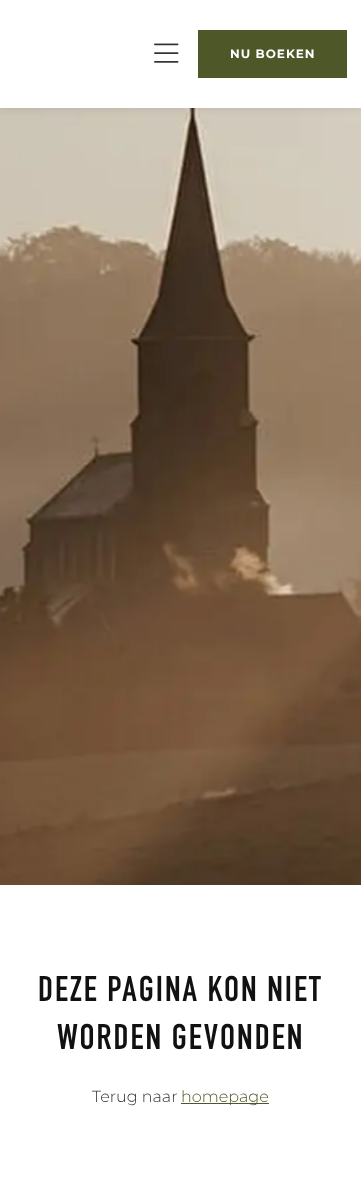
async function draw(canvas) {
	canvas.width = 361;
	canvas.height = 1180;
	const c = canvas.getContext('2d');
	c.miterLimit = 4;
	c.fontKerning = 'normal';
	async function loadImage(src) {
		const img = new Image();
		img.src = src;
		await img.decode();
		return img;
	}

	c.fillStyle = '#fff';
	c.fillRect(0, 0, 361, 1180);
	c.drawImage(await loadImage('img2.png'), 0, 108, 361, 777);
	c.fillStyle = '#0000001a';
	c.filter = 'blur(5px)';
	c.beginPath();
	c.rect(0, 0, 361, 108);
	c.fill();
	c.filter = 'none';
	c.fillStyle = '#fff';
	c.fillRect(0, 0, 361, 108);
	c.drawImage(await loadImage('img1.png'), 154, 43, 25, 20);
	c.fillStyle = '#4d5728';
	c.fillRect(198, 30, 149, 48);
	c.letterSpacing = '1px';
	c.font = 'bold 12px Montserrat';
	c.fillStyle = '#fff';
	c.fillText('NU BOEKEN', 230, 58);
	c.letterSpacing = '2px';
	c.font = 'bold 35.25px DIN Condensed';
	c.fillStyle = '#111';
	c.fillText('DEZE PAGINA KON NIET', 38, 1001);
	c.fillText('WORDEN GEVONDEN', 57, 1049);
	c.letterSpacing = '0px';
	c.font = '300 16px Montserrat';
	c.fillStyle = '#333';
	c.fillText('Terug naar', 92, 1102);
	c.fillStyle = '#4d5728';
	c.fillRect(181, 1103, 88, 1);
	c.fillText('homepage', 181, 1102);
}

draw(document.querySelector('canvas'));
